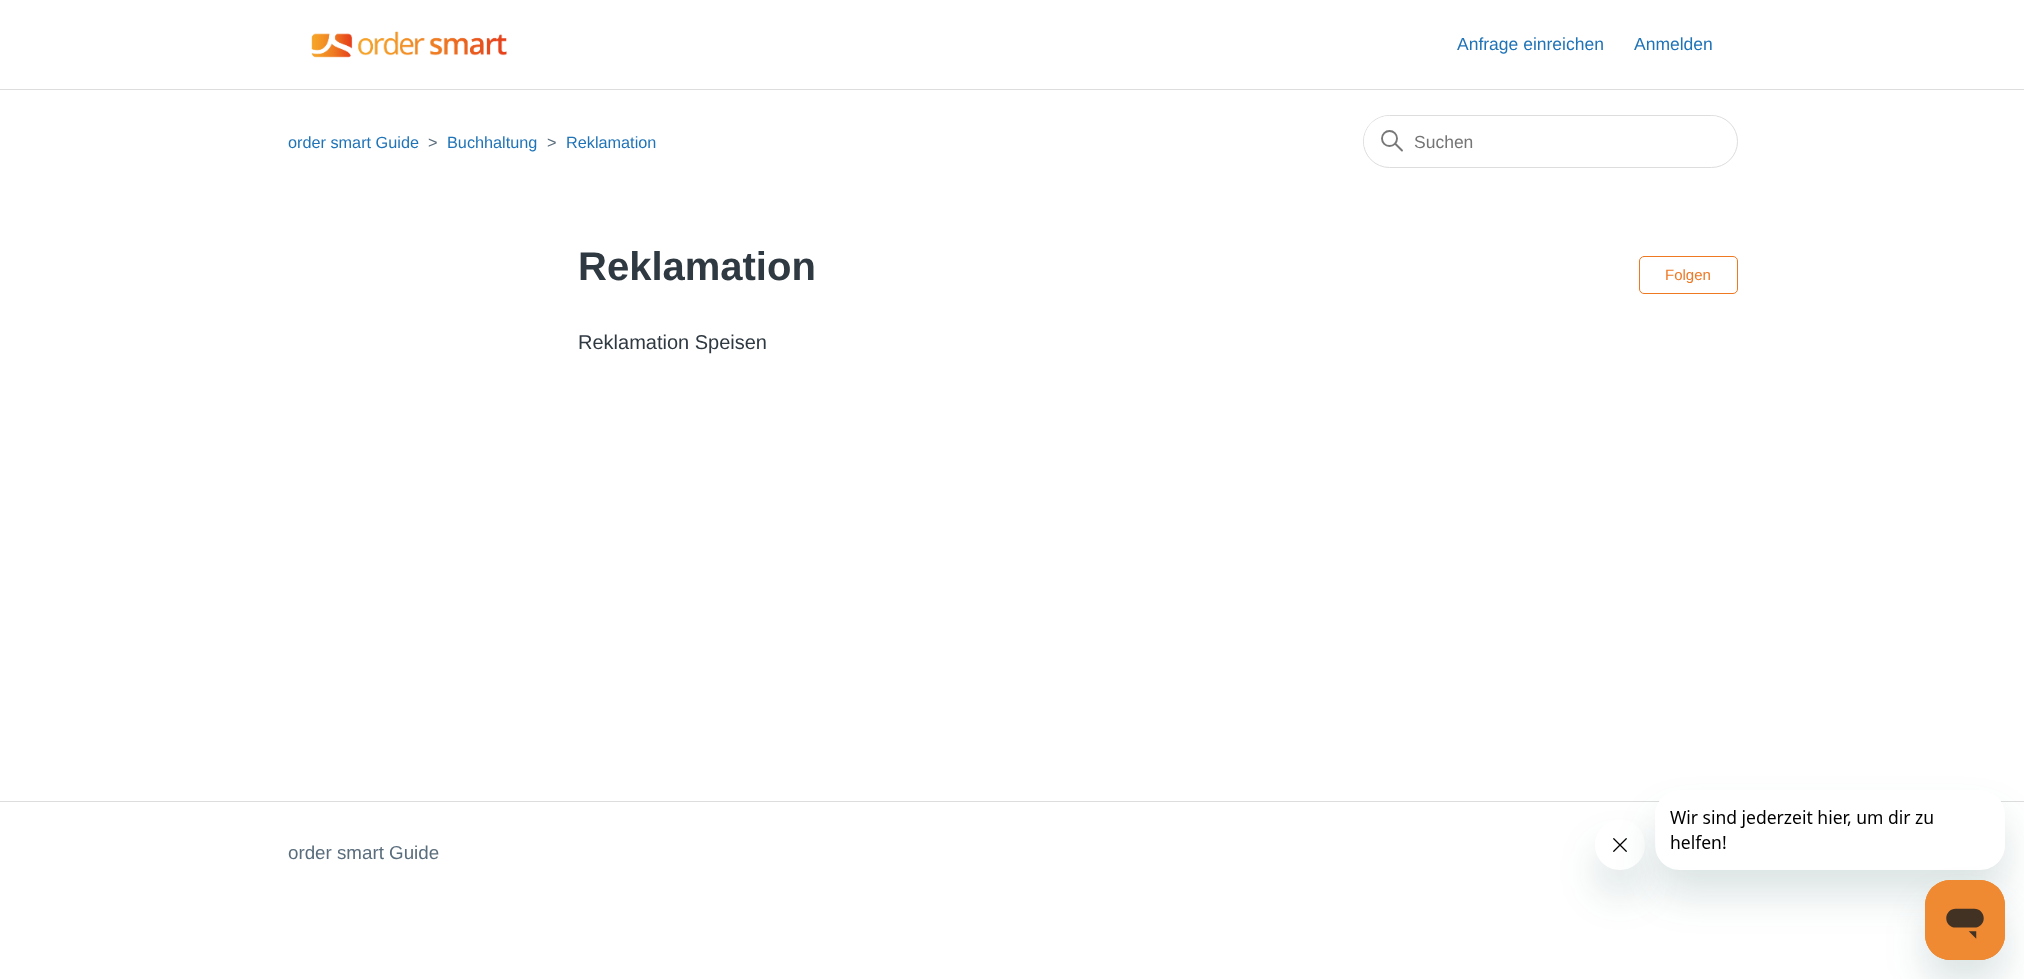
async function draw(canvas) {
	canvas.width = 2024;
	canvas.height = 979;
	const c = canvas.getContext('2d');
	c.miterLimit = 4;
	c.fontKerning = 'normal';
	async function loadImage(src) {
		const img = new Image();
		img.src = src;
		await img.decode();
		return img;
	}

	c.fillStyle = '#fff';
	c.fillRect(0, 0, 2024, 979);
	c.drawImage(await loadImage('img1.png'), 311, 31, 196, 27);
	c.font = '17.5px Liberation Sans';
	c.fillStyle = '#1f73b7';
	c.fillText('Anfrage einreichen', 1457, 50);
	c.fillText('Anmelden', 1634, 50);
	c.fillStyle = '#ddd';
	c.fillRect(0, 89, 2024, 1);
	c.font = '16.25px Liberation Sans';
	c.fillStyle = '#1f73b7';
	c.fillText('order smart Guide', 288, 148);
	c.fillStyle = '#5a6d7c';
	c.fillText('>', 428, 148);
	c.fillStyle = '#1f73b7';
	c.fillText('Buchhaltung', 447, 148);
	c.fillStyle = '#5a6d7c';
	c.fillText('>', 547, 148);
	c.fillStyle = '#1f73b7';
	c.fillText('Reklamation', 566, 148);
	c.beginPath();
	c.roundRect(1363.5, 115.5, 374, 52, 26);
	c.strokeStyle = '#ddd';
	c.stroke();
	c.fillStyle = '#fff';
	c.beginPath();
	c.roundRect(1364, 116, 372, 50, 25);
	c.fill();
	c.beginPath();
	c.arc(1389.5, 138.5, 7.5, 0, 2 * Math.PI);
	c.strokeStyle = '#777';
	c.lineWidth = 1.9;
	c.stroke();
	c.beginPath();
	c.moveTo(1402, 150.5);
	c.lineTo(1395.5, 144);
	c.lineCap = 'round';
	c.stroke();
	c.font = '17.5px Liberation Sans';
	c.fillStyle = '#757575';
	c.fillText('Suchen', 1414, 148);
	c.font = 'bold 40px Liberation Sans';
	c.fillStyle = '#2f3941';
	c.fillText('Reklamation', 578, 280);
	c.beginPath();
	c.roundRect(1639.5, 256.5, 98, 37, 4.5);
	c.strokeStyle = '#ef7823';
	c.lineWidth = 1;
	c.stroke();
	c.font = '15px Liberation Sans';
	c.fillStyle = '#ef7823';
	c.fillText('Folgen', 1665, 280);
	c.font = '20px Liberation Sans';
	c.fillStyle = '#2f3941';
	c.fillText('Reklamation Speisen', 578, 349);
	c.fillStyle = '#ddd';
	c.fillRect(0, 801, 2024, 1);
	c.font = '18.75px Liberation Sans';
	c.fillStyle = '#5a6d7c';
	c.fillText('order smart Guide', 288, 859);
	c.save();
	c.beginPath();
	c.moveTo(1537, 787);
	c.lineTo(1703, 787);
	c.lineTo(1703, 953);
	c.lineTo(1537, 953);
	c.closePath();
	c.moveTo(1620, 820);
	c.bezierCurveTo(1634, 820, 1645, 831, 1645, 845);
	c.bezierCurveTo(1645, 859, 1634, 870, 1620, 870);
	c.bezierCurveTo(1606, 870, 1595, 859, 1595, 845);
	c.bezierCurveTo(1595, 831, 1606, 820, 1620, 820);
	c.closePath();
	c.clip('evenodd');
	c.fillStyle = '#17494d26';
	c.filter = 'blur(19px)';
	c.beginPath();
	c.roundRect(1595, 845, 50, 50, 25);
	c.fill();
	c.filter = 'none';
	c.restore();
	c.drawImage(await loadImage('img3.png'), 1613, 838, 14, 14);
	c.save();
	c.beginPath();
	c.moveTo(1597, 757);
	c.lineTo(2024, 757);
	c.lineTo(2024, 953);
	c.lineTo(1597, 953);
	c.closePath();
	c.moveTo(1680, 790);
	c.lineTo(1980, 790);
	c.bezierCurveTo(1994, 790, 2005, 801, 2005, 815);
	c.lineTo(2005, 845);
	c.bezierCurveTo(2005, 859, 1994, 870, 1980, 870);
	c.lineTo(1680, 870);
	c.bezierCurveTo(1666, 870, 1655, 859, 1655, 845);
	c.lineTo(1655, 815);
	c.bezierCurveTo(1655, 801, 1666, 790, 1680, 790);
	c.closePath();
	c.clip('evenodd');
	c.fillStyle = '#17494d26';
	c.filter = 'blur(19px)';
	c.beginPath();
	c.roundRect(1655, 815, 350, 80, 25);
	c.fill();
	c.filter = 'none';
	c.restore();
	c.drawImage(await loadImage('img2.png'), 1656, 801, 345, 66);
	c.fillStyle = '#17494d26';
	c.filter = 'blur(19px)';
	c.beginPath();
	c.roundRect(1925, 905, 80, 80, 25);
	c.fill();
	c.filter = 'none';
	c.drawImage(await loadImage('img4.png'), 1925, 880, 80, 80);
}

draw(document.querySelector('canvas'));
